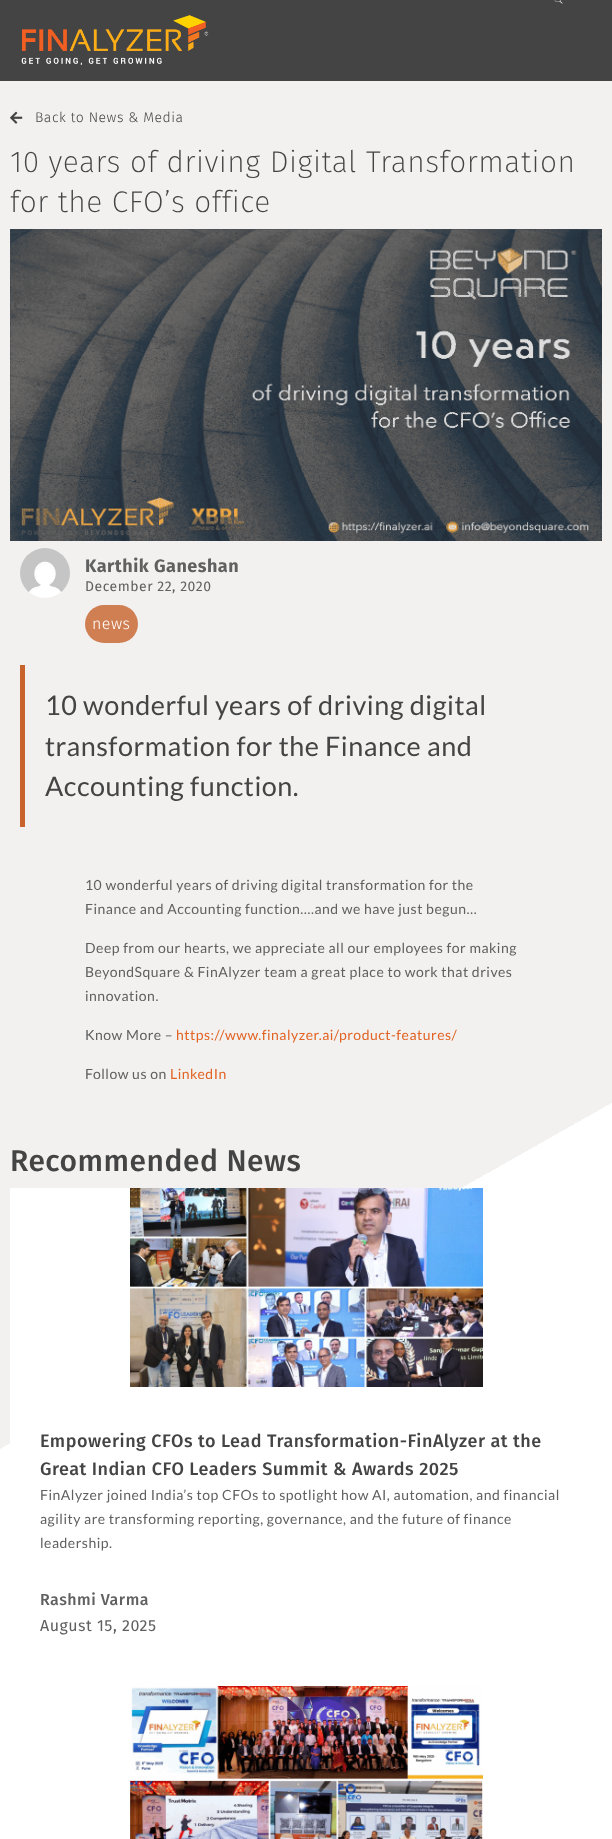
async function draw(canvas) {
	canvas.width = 612;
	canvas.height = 1839;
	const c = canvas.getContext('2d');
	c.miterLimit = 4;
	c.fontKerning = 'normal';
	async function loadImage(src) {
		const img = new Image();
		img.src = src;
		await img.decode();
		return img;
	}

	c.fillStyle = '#fff';
	c.fillRect(0, 0, 612, 1839);
	c.drawImage(await loadImage('img1.png'), 0, 81, 612, 1368);
	c.fillStyle = '#444';
	c.fillRect(0, 0, 612, 81);
	c.drawImage(await loadImage('img2.png'), 554, 0, 9, 4);
	c.drawImage(await loadImage('img3.png'), 21, 15, 188, 50);
	c.drawImage(await loadImage('img4.png'), 10, 111, 13, 13);
	c.letterSpacing = '0.5px';
	c.font = '300 14px Fira Sans';
	c.fillText('Back to News & Media', 35, 122);
	c.font = '200 30px Fira Sans';
	c.fillText('10 years of driving Digital Transformation', 10, 172);
	c.fillText('for the CFO’s office', 10, 212);
	c.drawImage(await loadImage('img5.png'), 10, 229, 592, 312);
	c.drawImage(await loadImage('img6.png'), 20, 548, 50, 50);
	c.font = 'bold 18px Fira Sans';
	c.fillStyle = '#606060';
	c.fillText('Karthik Ganeshan', 85, 572);
	c.font = '14px Fira Sans';
	c.fillText('December 22, 2020', 85, 591);
	c.fillStyle = '#d07f53';
	c.beginPath();
	c.roundRect(85, 605, 53, 38, 19);
	c.fill();
	c.font = '300 16px Fira Sans';
	c.fillStyle = '#fff';
	c.fillText('news', 92, 629);
	c.fillStyle = '#c8632c';
	c.fillRect(20, 665, 5, 162);
	c.font = '27px Lato';
	c.fillStyle = '#444';
	for (const [text, x, y] of [
		['10 wonderful years of driving digital', 45, 715],
		['transformation for the Finance and', 45, 756],
		['Accounting function.', 45, 796],
	]) {
		c.fillText(text, x, y);
	}
	c.font = '14px Lato';
	c.fillStyle = '#606060';
	for (const [text, x, y] of [
		['10 wonderful years of driving digital transformation for the', 85, 890],
		['Finance and Accounting function….and we have just begun…', 85, 914],
		['Deep from our hearts, we appreciate all our employees for making', 85, 953],
		['BeyondSquare & FinAlyzer team a great place to work that drives', 85, 977],
		['innovation.', 85, 1001],
		['Know More –', 85, 1040],
	]) {
		c.fillText(text, x, y);
	}
	c.fillStyle = '#e26323';
	c.fillText('https://www.finalyzer.ai/product-features/', 176, 1040);
	c.fillStyle = '#606060';
	c.fillText('Follow us on', 85, 1079);
	c.fillStyle = '#e26323';
	c.fillText('LinkedIn', 170, 1079);
	c.font = '500 30px Fira Sans';
	c.fillStyle = '#444';
	c.fillText('Recommended News', 10, 1171);
	c.fillStyle = '#fff';
	c.fillRect(10, 1188, 451, 255);
	c.drawImage(await loadImage('img7.png'), 130, 1188, 353, 199);
	c.font = '500 18px Fira Sans';
	c.fillStyle = '#444';
	c.fillText('Empowering CFOs to Lead Transformation-FinAlyzer at the', 40, 1447);
	c.fillText('Great Indian CFO Leaders Summit & Awards 2025', 40, 1475);
	c.font = '14px Lato';
	c.fillStyle = '#606060';
	for (const [text, x, y] of [
		['FinAlyzer joined India’s top CFOs to spotlight how AI, automation, and financial', 40, 1500],
		['agility are transforming reporting, governance, and the future of finance', 40, 1524],
		['leadership.', 40, 1548],
	]) {
		c.fillText(text, x, y);
	}
	c.font = '500 16px Fira Sans';
	c.fillText('Rashmi Varma', 40, 1605);
	c.font = '16px Fira Sans';
	c.fillText('August 15, 2025', 40, 1631);
	c.drawImage(await loadImage('img8.png'), 130, 1686, 353, 153);
}

draw(document.querySelector('canvas'));
